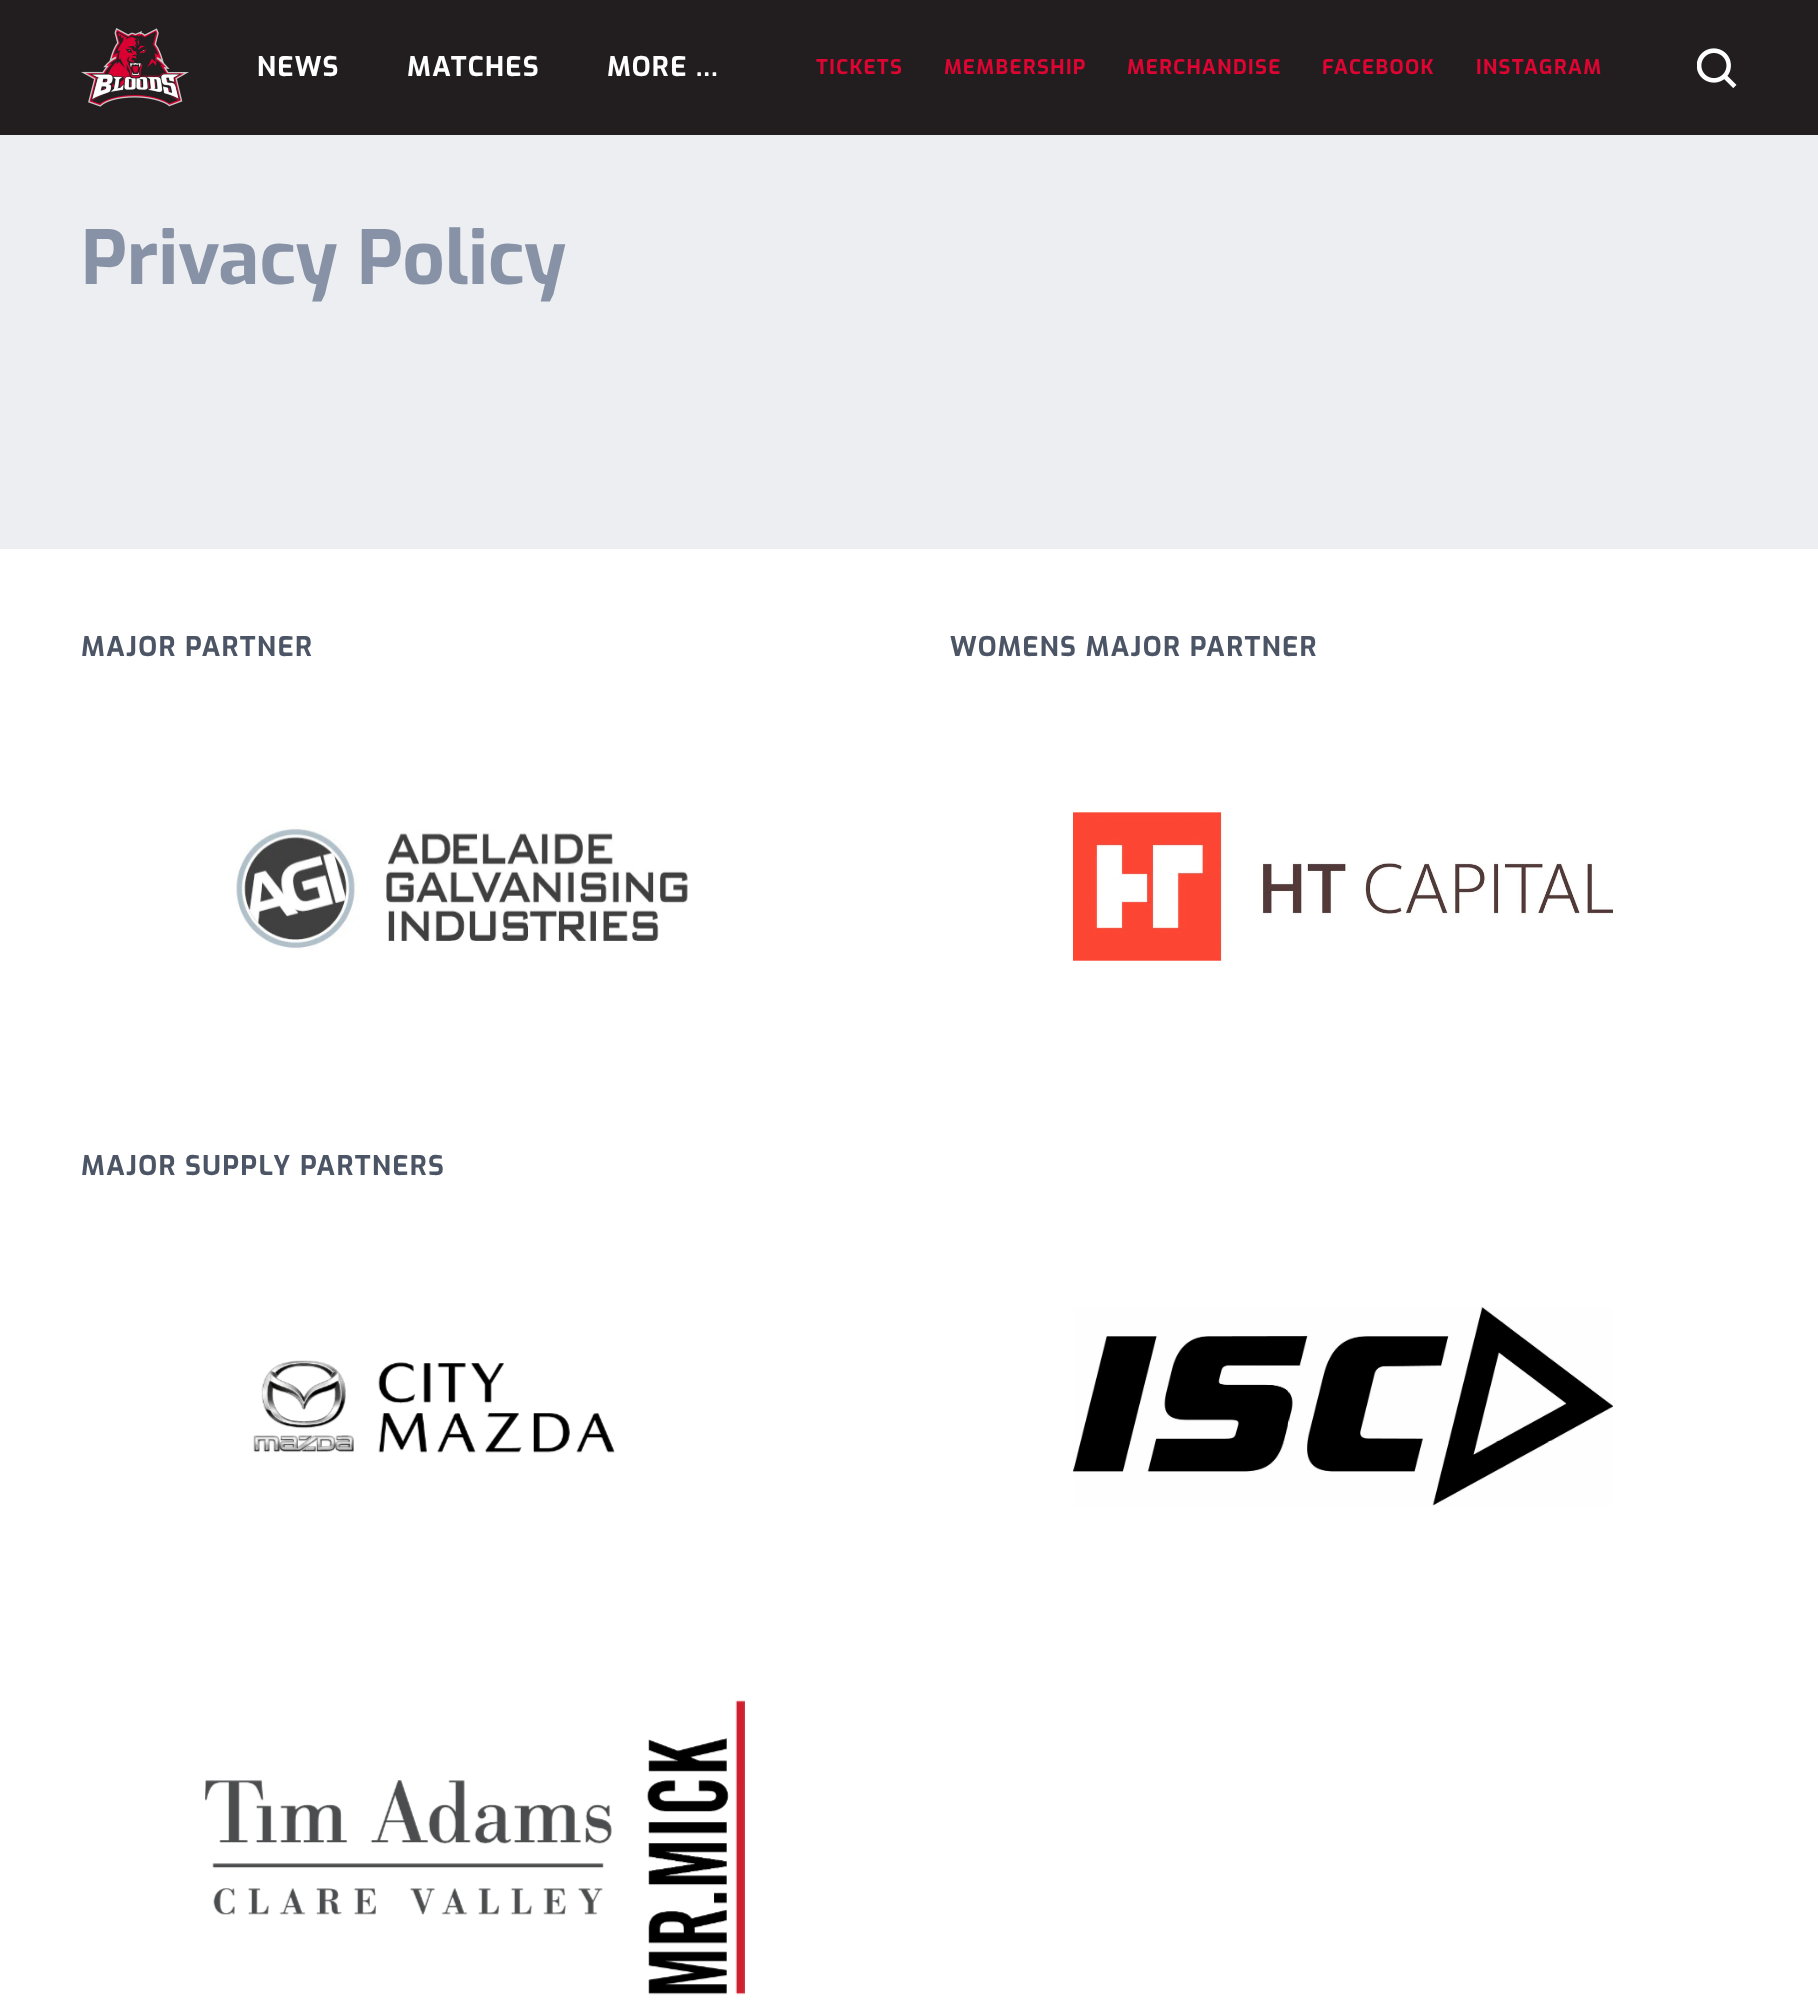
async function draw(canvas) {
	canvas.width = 1818;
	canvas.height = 2014;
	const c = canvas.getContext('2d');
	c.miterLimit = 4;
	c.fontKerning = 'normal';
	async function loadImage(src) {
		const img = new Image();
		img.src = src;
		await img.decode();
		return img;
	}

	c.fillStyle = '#edeef2';
	c.fillRect(0, 0, 1818, 2014);
	c.fillStyle = '#221e20';
	c.fillRect(0, 0, 1818, 135);
	c.drawImage(await loadImage('img1.png'), 81, 28, 108, 79);
	c.letterSpacing = '1.35px';
	c.font = 'bold 27px Exo';
	c.fillStyle = '#fff';
	for (const [text, x, y] of [
		['NEWS', 257, 76],
		['MATCHES', 407, 76],
		['MORE ...', 607, 76],
	]) {
		c.fillText(text, x, y);
	}
	c.font = 'bold 20.25px Exo';
	c.fillStyle = '#de0532';
	for (const [text, x, y] of [
		['TICKETS', 816, 74],
		['MEMBERSHIP', 944, 74],
		['MERCHANDISE', 1127, 74],
		['FACEBOOK', 1322, 74],
		['INSTAGRAM', 1476, 74],
	]) {
		c.fillText(text, x, y);
	}
	c.drawImage(await loadImage('img2.png'), 1697, 48, 40, 40);
	c.letterSpacing = '0px';
	c.font = 'bold 74.25px Exo';
	c.fillStyle = '#8792a6';
	c.fillText('Privacy Policy', 81, 284);
	c.fillStyle = '#fff';
	c.fillRect(0, 549, 1818, 1465);
	c.letterSpacing = '1.35px';
	c.font = 'bold 27px Exo';
	c.fillStyle = '#4c5565';
	c.fillText('MAJOR PARTNER', 81, 656);
	c.drawImage(await loadImage('img3.png'), 236, 826, 452, 124);
	c.fillText('WOMENS MAJOR PARTNER', 950, 656);
	c.drawImage(await loadImage('img4.png'), 1073, 812, 540, 149);
	c.fillText('MAJOR SUPPLY PARTNERS', 81, 1175);
	c.drawImage(await loadImage('img5.png'), 253, 1360, 362, 93);
	c.drawImage(await loadImage('img6.png'), 1073, 1307, 540, 199);
	c.drawImage(await loadImage('img7.png'), 205, 1700, 540, 295);
}

draw(document.querySelector('canvas'));
